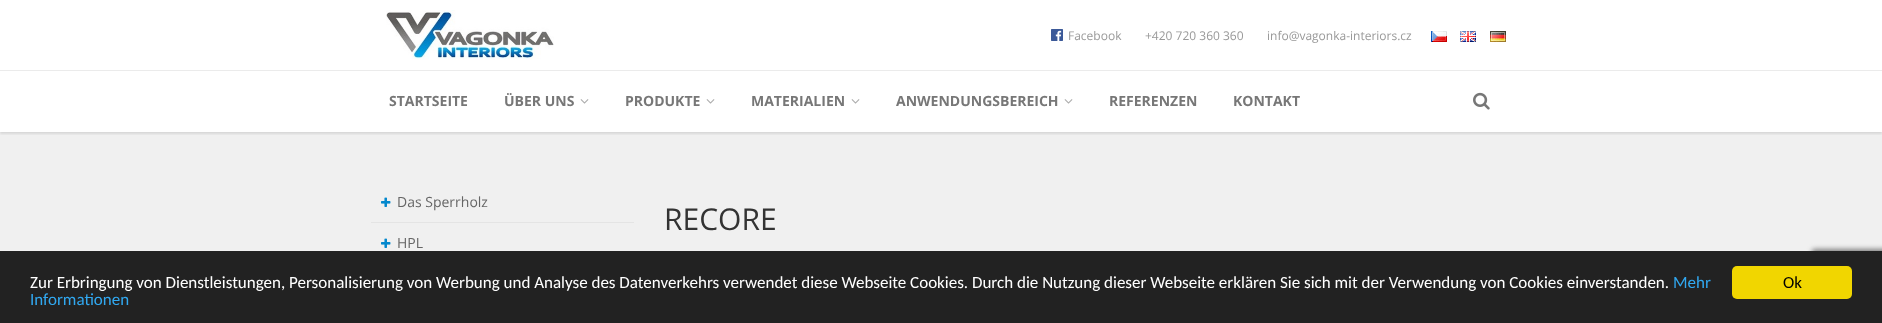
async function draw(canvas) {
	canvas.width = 1882;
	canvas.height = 323;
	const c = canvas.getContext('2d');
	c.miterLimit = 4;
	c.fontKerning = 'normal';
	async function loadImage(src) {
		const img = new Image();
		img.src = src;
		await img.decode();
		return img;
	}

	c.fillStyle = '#fff';
	c.fillRect(0, 0, 1882, 323);
	c.drawImage(await loadImage('img1.png'), 386, 10, 168, 50);
	c.drawImage(await loadImage('img2.png'), 1051, 29, 12, 12);
	c.font = '12px Open Sans';
	c.fillStyle = '#999';
	for (const [text, x, y] of [
		['Facebook', 1068, 40],
		['+420 720 360 360', 1145, 40],
		['info@vagonka-interiors.cz', 1267, 40],
	]) {
		c.fillText(text, x, y);
	}
	c.drawImage(await loadImage('img3.png'), 1431, 31, 16, 11);
	c.drawImage(await loadImage('img4.png'), 1460, 31, 16, 11);
	c.drawImage(await loadImage('img5.png'), 1490, 31, 16, 11);
	c.fillStyle = '#f0f0f0';
	c.fillRect(0, 132, 1882, 119);
	c.save();
	c.beginPath();
	c.rect(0, 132, 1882, 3);
	c.clip();
	c.fillStyle = '#0000001a';
	c.filter = 'blur(1px)';
	c.beginPath();
	c.rect(0, 72, 1882, 62);
	c.fill();
	c.filter = 'none';
	c.restore();
	c.fillStyle = '#ebebeb';
	c.fillRect(0, 70, 1882, 1);
	c.font = 'bold 14px Open Sans';
	c.fillStyle = '#777';
	c.fillText('STARTSEITE', 389, 106);
	c.fillText('ÜBER UNS', 504, 106);
	c.drawImage(await loadImage('img6.png'), 580, 99, 9, 5);
	c.fillText('PRODUKTE', 625, 106);
	c.drawImage(await loadImage('img6.png'), 706, 99, 9, 5);
	c.fillText('MATERIALIEN', 751, 106);
	c.drawImage(await loadImage('img6.png'), 851, 99, 9, 5);
	c.fillText('ANWENDUNGSBEREICH', 896, 106);
	c.drawImage(await loadImage('img6.png'), 1064, 99, 9, 5);
	c.fillText('REFERENZEN', 1109, 106);
	c.fillText('KONTAKT', 1233, 106);
	c.drawImage(await loadImage('img7.png'), 1473, 92, 17, 18);
	c.fillStyle = '#e4e4e4';
	c.fillRect(371, 222, 263, 1);
	c.drawImage(await loadImage('img8.png'), 381, 197, 10, 10);
	c.font = '14px Open Sans';
	c.fillStyle = '#666';
	c.fillText('Das Sperrholz', 397, 207);
	c.drawImage(await loadImage('img8.png'), 381, 238, 10, 10);
	c.fillText('HPL', 397, 248);
	c.font = '30px Open Sans';
	c.fillStyle = '#333';
	c.fillText('RECORE', 664, 230);
	c.fillStyle = '#808080';
	c.filter = 'blur(2.5px)';
	c.beginPath();
	c.roundRect(1812, 249, 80, 60, 2);
	c.fill();
	c.filter = 'none';
	c.fillStyle = '#222';
	c.fillRect(0, 251, 1882, 72);
	c.font = '17px Carlito';
	c.fillStyle = '#fff';
	c.fillText('Zur Erbringung von Dienstleistungen, Personalisierung von Werbung und Analyse des Datenverkehrs verwendet diese Webseite Cookies. Durch die Nutzung dieser Webseite erklären Sie sich mit der Verwendung von Cookies einverstanden.', 30, 288);
	c.fillStyle = '#31a8f0';
	c.fillText('Mehr', 1673, 288);
	c.fillText('Informationen', 30, 305);
	c.fillStyle = '#f1d600';
	c.beginPath();
	c.roundRect(1732, 266, 120, 33, 5);
	c.fill();
	c.fillStyle = '#000';
	c.fillText('Ok', 1783, 288);
}

draw(document.querySelector('canvas'));
